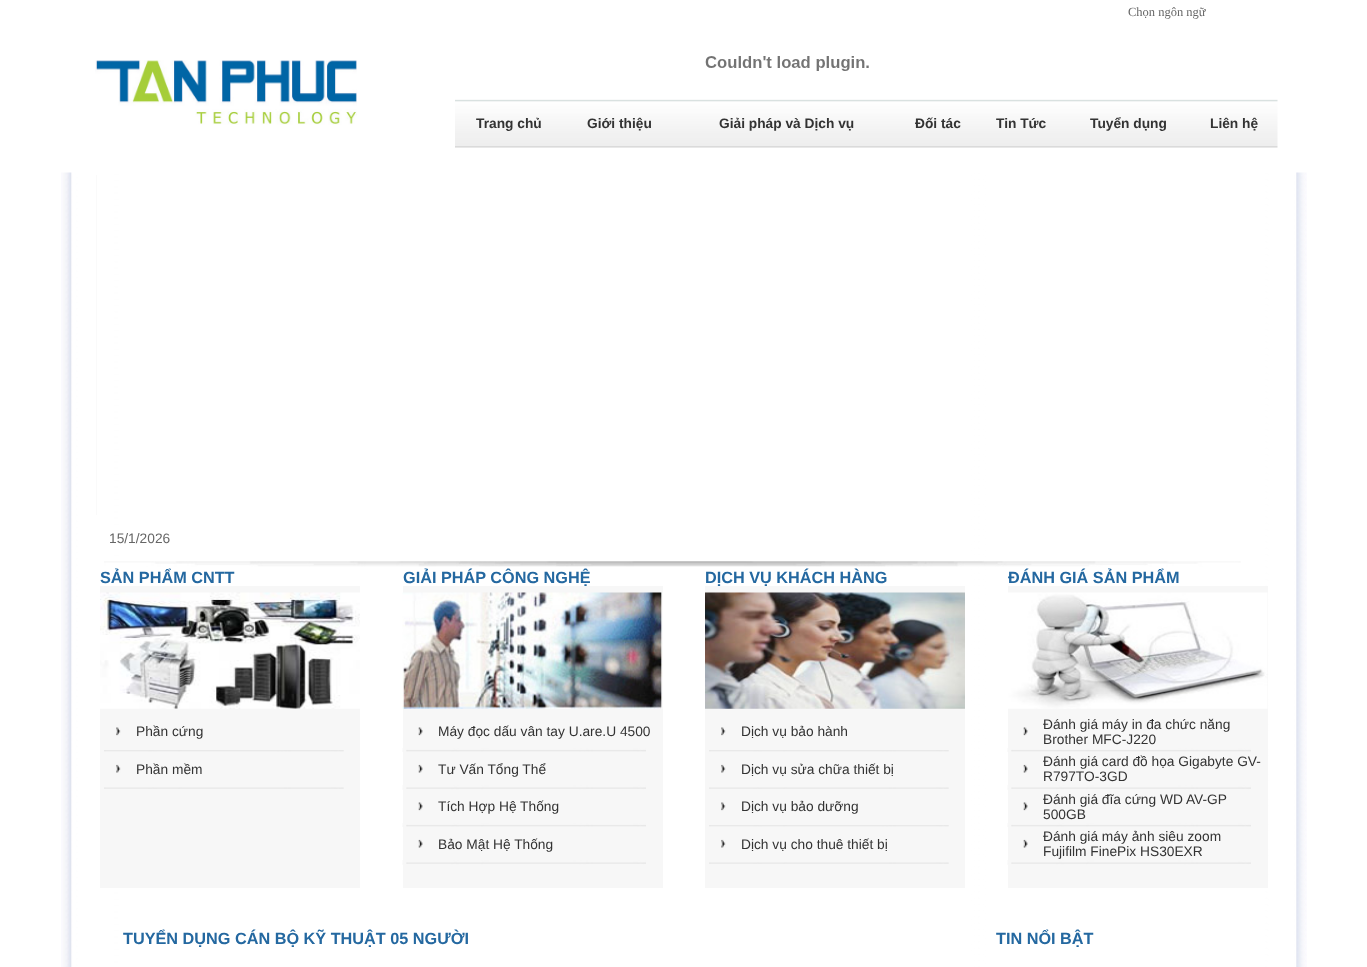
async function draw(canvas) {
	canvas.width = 1367;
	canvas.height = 967;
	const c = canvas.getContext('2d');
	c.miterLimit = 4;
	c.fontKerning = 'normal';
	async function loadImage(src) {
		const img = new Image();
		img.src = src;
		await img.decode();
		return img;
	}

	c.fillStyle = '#fff';
	c.fillRect(0, 0, 1367, 967);
	c.font = '12.5px Liberation Serif';
	c.fillStyle = '#666';
	c.fillText('Chọn ngôn ngữ', 1128, 16);
	c.drawImage(await loadImage('img1.png'), 95, 60, 262, 65);
	c.drawImage(await loadImage('img2.png'), 705, 56, 164, 15);
	c.drawImage(await loadImage('img3.png'), 455, 99, 823, 49);
	c.font = 'bold 13.75px Liberation Sans';
	c.fillStyle = '#333';
	for (const [text, x, y] of [
		['Trang chủ', 476, 128],
		['Giới thiệu', 587, 128],
		['Giải pháp và Dịch vụ', 719, 128],
		['Đối tác', 915, 128],
		['Tin Tức', 996, 128],
		['Tuyển dụng', 1090, 128],
		['Liên hệ', 1210, 128],
	]) {
		c.fillText(text, x, y);
	}
	c.drawImage(await loadImage('img4.png'), 61, 172, 1246, 795);
	c.fillStyle = '#fafafa';
	c.fillRect(96, 175, 1, 340);
	c.font = '13.75px Liberation Sans';
	c.fillStyle = '#666';
	c.fillText('15/1/2026', 109, 543);
	c.drawImage(await loadImage('img5.png'), 104, 561, 1137, 6);
	c.fillStyle = '#f7f7f7';
	c.fillRect(100, 586, 260, 302);
	c.font = 'bold 16.25px Liberation Sans';
	c.fillStyle = '#2468a0';
	c.fillText('SẢN PHẨM CNTT', 100, 583);
	c.drawImage(await loadImage('img6.png'), 100, 592, 260, 117);
	c.drawImage(await loadImage('img7.png'), 116, 727, 5, 9);
	c.font = '13.75px Liberation Sans';
	c.fillStyle = '#333';
	c.fillText('Phần cứng', 136, 736);
	c.drawImage(await loadImage('img8.png'), 104, 750, 240, 2);
	c.drawImage(await loadImage('img9.png'), 116, 764, 5, 9);
	c.fillText('Phần mềm', 136, 774);
	c.drawImage(await loadImage('img10.png'), 104, 787, 240, 2);
	c.fillStyle = '#f7f7f7';
	c.fillRect(403, 586, 260, 302);
	c.font = 'bold 16.25px Liberation Sans';
	c.fillStyle = '#2468a0';
	c.fillText('GIẢI PHÁP CÔNG NGHỆ', 403, 583);
	c.drawImage(await loadImage('img11.png'), 402, 592, 261, 117);
	c.drawImage(await loadImage('img12.png'), 418, 727, 5, 9);
	c.font = '13.75px Liberation Sans';
	c.fillStyle = '#333';
	c.fillText('Máy đọc dấu vân tay U.are.U 4500', 438, 736);
	c.drawImage(await loadImage('img13.png'), 402, 748, 244, 4);
	c.drawImage(await loadImage('img14.png'), 418, 764, 5, 9);
	c.fillText('Tư Vấn Tổng Thể', 438, 774);
	c.drawImage(await loadImage('img15.png'), 402, 785, 244, 5);
	c.drawImage(await loadImage('img12.png'), 418, 802, 5, 9);
	c.fillText('Tích Hợp Hệ Thống', 438, 811);
	c.drawImage(await loadImage('img13.png'), 402, 823, 244, 4);
	c.drawImage(await loadImage('img14.png'), 418, 839, 5, 9);
	c.fillText('Bảo Mật Hệ Thống', 438, 849);
	c.drawImage(await loadImage('img15.png'), 402, 860, 244, 5);
	c.fillStyle = '#f7f7f7';
	c.fillRect(705, 586, 260, 302);
	c.font = 'bold 16.25px Liberation Sans';
	c.fillStyle = '#2468a0';
	c.fillText('DỊCH VỤ KHÁCH HÀNG', 705, 583);
	c.drawImage(await loadImage('img16.png'), 705, 592, 260, 117);
	c.drawImage(await loadImage('img7.png'), 721, 727, 5, 9);
	c.font = '13.75px Liberation Sans';
	c.fillStyle = '#333';
	c.fillText('Dịch vụ bảo hành', 741, 736);
	c.drawImage(await loadImage('img8.png'), 709, 750, 240, 2);
	c.drawImage(await loadImage('img9.png'), 721, 764, 5, 9);
	c.fillText('Dịch vụ sửa chữa thiết bị', 741, 774);
	c.drawImage(await loadImage('img10.png'), 709, 787, 240, 2);
	c.drawImage(await loadImage('img7.png'), 721, 802, 5, 9);
	c.fillText('Dịch vụ bảo dưỡng', 741, 811);
	c.drawImage(await loadImage('img8.png'), 709, 825, 240, 2);
	c.drawImage(await loadImage('img9.png'), 721, 839, 5, 9);
	c.fillText('Dịch vụ cho thuê thiết bị', 741, 849);
	c.drawImage(await loadImage('img10.png'), 709, 862, 240, 2);
	c.fillStyle = '#f7f7f7';
	c.fillRect(1008, 586, 260, 302);
	c.font = 'bold 16.25px Liberation Sans';
	c.fillStyle = '#2468a0';
	c.fillText('ĐÁNH GIÁ SẢN PHẨM', 1008, 583);
	c.drawImage(await loadImage('img17.png'), 1008, 592, 260, 117);
	c.drawImage(await loadImage('img12.png'), 1023, 727, 5, 9);
	c.font = '13.75px Liberation Sans';
	c.fillStyle = '#333';
	c.fillText('Đánh giá máy in đa chức năng', 1043, 729);
	c.fillText('Brother MFC-J220', 1043, 744);
	c.drawImage(await loadImage('img18.png'), 1007, 748, 244, 4);
	c.drawImage(await loadImage('img14.png'), 1023, 764, 5, 9);
	c.fillText('Đánh giá card đồ họa Gigabyte GV-', 1043, 766);
	c.fillText('R797TO-3GD', 1043, 781);
	c.drawImage(await loadImage('img19.png'), 1007, 785, 244, 5);
	c.drawImage(await loadImage('img12.png'), 1023, 802, 5, 9);
	c.fillText('Đánh giá đĩa cứng WD AV-GP', 1043, 804);
	c.fillText('500GB', 1043, 819);
	c.drawImage(await loadImage('img18.png'), 1007, 823, 244, 4);
	c.drawImage(await loadImage('img14.png'), 1023, 839, 5, 9);
	c.fillText('Đánh giá máy ảnh siêu zoom', 1043, 841);
	c.fillText('Fujifilm FinePix HS30EXR', 1043, 856);
	c.drawImage(await loadImage('img19.png'), 1007, 860, 244, 5);
	c.font = 'bold 16.25px Liberation Sans';
	c.fillStyle = '#2468a0';
	c.fillText('TUYỂN DỤNG CÁN BỘ KỸ THUẬT 05 NGƯỜI', 123, 944);
	c.fillText('TIN NỔI BẬT', 996, 944);
}

draw(document.querySelector('canvas'));
